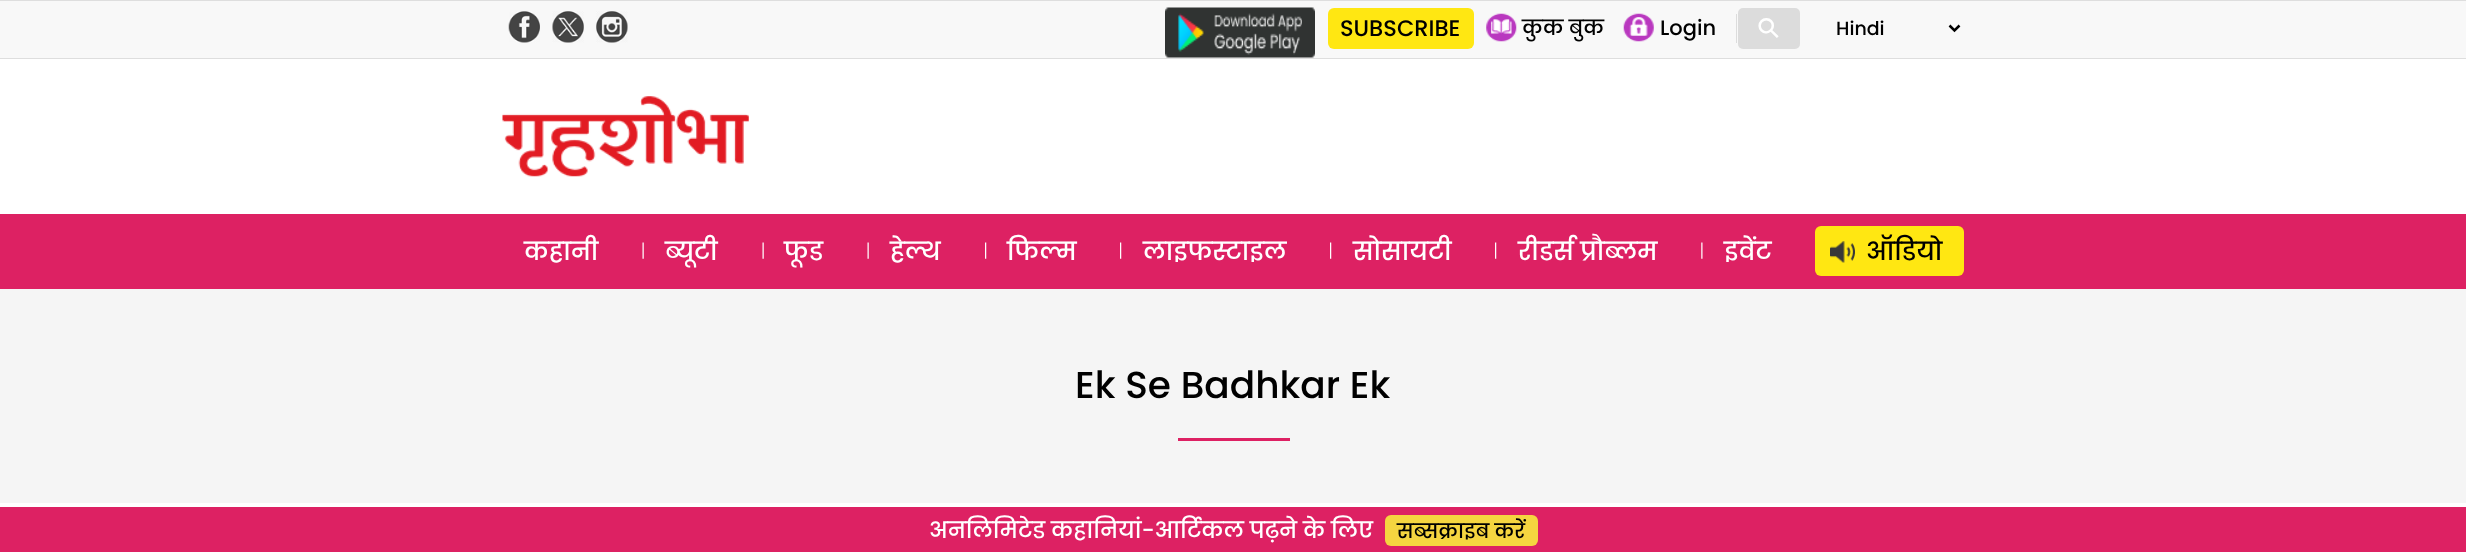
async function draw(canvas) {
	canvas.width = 2466;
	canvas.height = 552;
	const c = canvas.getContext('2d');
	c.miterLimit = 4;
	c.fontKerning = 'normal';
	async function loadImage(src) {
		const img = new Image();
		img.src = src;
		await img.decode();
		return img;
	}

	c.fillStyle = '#fff';
	c.fillRect(0, 0, 2466, 552);
	for (const [x, y, w, h, color] of [
		[0, 1, 2466, 57, '#f8f8f8'],
		[0, 0, 2466, 1, '#dedede'],
		[0, 58, 2466, 1, '#dedede'],
	]) {
		c.fillStyle = color;
		c.fillRect(x, y, w, h);
	}
	c.drawImage(await loadImage('img1.png'), 508, 11, 32, 32);
	c.drawImage(await loadImage('img2.png'), 552, 11, 32, 32);
	c.drawImage(await loadImage('img3.png'), 596, 11, 32, 32);
	c.drawImage(await loadImage('img4.png'), 1165, 7, 150, 51);
	c.fillStyle = '#ffe712';
	c.beginPath();
	c.roundRect(1328, 8, 146, 41, 6);
	c.fill();
	c.font = '500 22.5px Poppins';
	c.fillStyle = '#000';
	c.fillText('SUBSCRIBE', 1340, 36);
	c.fillStyle = '#dcdcdc';
	c.fillRect(1736, 14, 1, 29);
	c.drawImage(await loadImage('img5.png'), 1486, 13, 31, 29);
	c.font = '500 21px Poppins';
	c.fillStyle = '#000';
	c.fillText('कुक बुक', 1522, 35);
	c.drawImage(await loadImage('img6.png'), 1623, 13, 31, 29);
	c.fillText('Login', 1660, 35);
	c.fillStyle = '#dcdcdc';
	c.beginPath();
	c.roundRect(1738, 8, 62, 41, 5);
	c.fill();
	c.font = '28px DejaVu Sans';
	c.fillStyle = '#fff';
	c.save();
	c.translate(1768, 42);
	c.rotate(-45 * Math.PI / 180);
	c.fillText('⚲', 0, 0);
	c.restore();
	c.beginPath();
	c.moveTo(1949.5, 25.5);
	c.lineTo(1954.5, 30.5);
	c.lineTo(1959.5, 25.5);
	c.strokeStyle = '#000';
	c.lineWidth = 2.5;
	c.stroke();
	c.font = '500 19px Poppins';
	c.fillStyle = '#000';
	c.fillText('Hindi', 1836, 35);
	c.drawImage(await loadImage('img7.png'), 502, 96, 247, 81);
	c.fillStyle = '#dd2163';
	c.fillRect(0, 214, 2466, 75);
	c.font = '500 25px Poppins';
	c.fillStyle = '#fff';
	c.fillText('कहानी', 524, 260);
	c.drawImage(await loadImage('img8.png'), 642, 242, 2, 17);
	c.fillText('ब्यूटी', 665, 260);
	c.drawImage(await loadImage('img8.png'), 762, 242, 2, 17);
	c.fillText('फूड', 784, 260);
	c.drawImage(await loadImage('img8.png'), 867, 242, 2, 17);
	c.fillText('हेल्थ', 890, 260);
	c.drawImage(await loadImage('img9.png'), 985, 242, 2, 17);
	c.fillText('फिल्म', 1007, 260);
	c.drawImage(await loadImage('img9.png'), 1120, 242, 2, 17);
	c.fillText('लाइफस्टाइल', 1143, 260);
	c.drawImage(await loadImage('img9.png'), 1330, 242, 2, 17);
	c.fillText('सोसायटी', 1353, 260);
	c.drawImage(await loadImage('img9.png'), 1495, 242, 2, 17);
	c.fillText('रीडर्स प्रौब्लम', 1518, 260);
	c.drawImage(await loadImage('img10.png'), 1701, 242, 2, 17);
	c.fillText('इवेंट', 1724, 260);
	c.fillStyle = '#ffe712';
	c.beginPath();
	c.roundRect(1815, 226, 149, 50, 6);
	c.fill();
	c.drawImage(await loadImage('img11.png'), 1830, 241, 25, 22);
	c.fillStyle = '#000';
	c.fillText('ऑडियो', 1866, 260);
	c.fillStyle = '#f5f5f5';
	c.fillRect(0, 289, 2466, 214);
	c.font = '500 37.5px Poppins';
	c.fillStyle = '#000';
	c.fillText('Ek Se Badhkar Ek', 1075, 398);
	c.fillStyle = '#dd2163';
	c.fillRect(1178, 438, 112, 3);
	c.fillRect(0, 507, 2466, 45);
	c.font = '500 22.5px Poppins';
	c.fillStyle = '#fff';
	c.fillText('अनलिमिटेड कहानियां-आर्टिकल पढ़ने के लिए', 929, 538);
	c.fillStyle = '#f5d540';
	c.beginPath();
	c.roundRect(1385, 515, 153, 31, 6);
	c.fill();
	c.font = '500 20px Poppins';
	c.fillStyle = '#000';
	c.fillText('सब्सक्राइब करें', 1397, 538);
}

draw(document.querySelector('canvas'));
